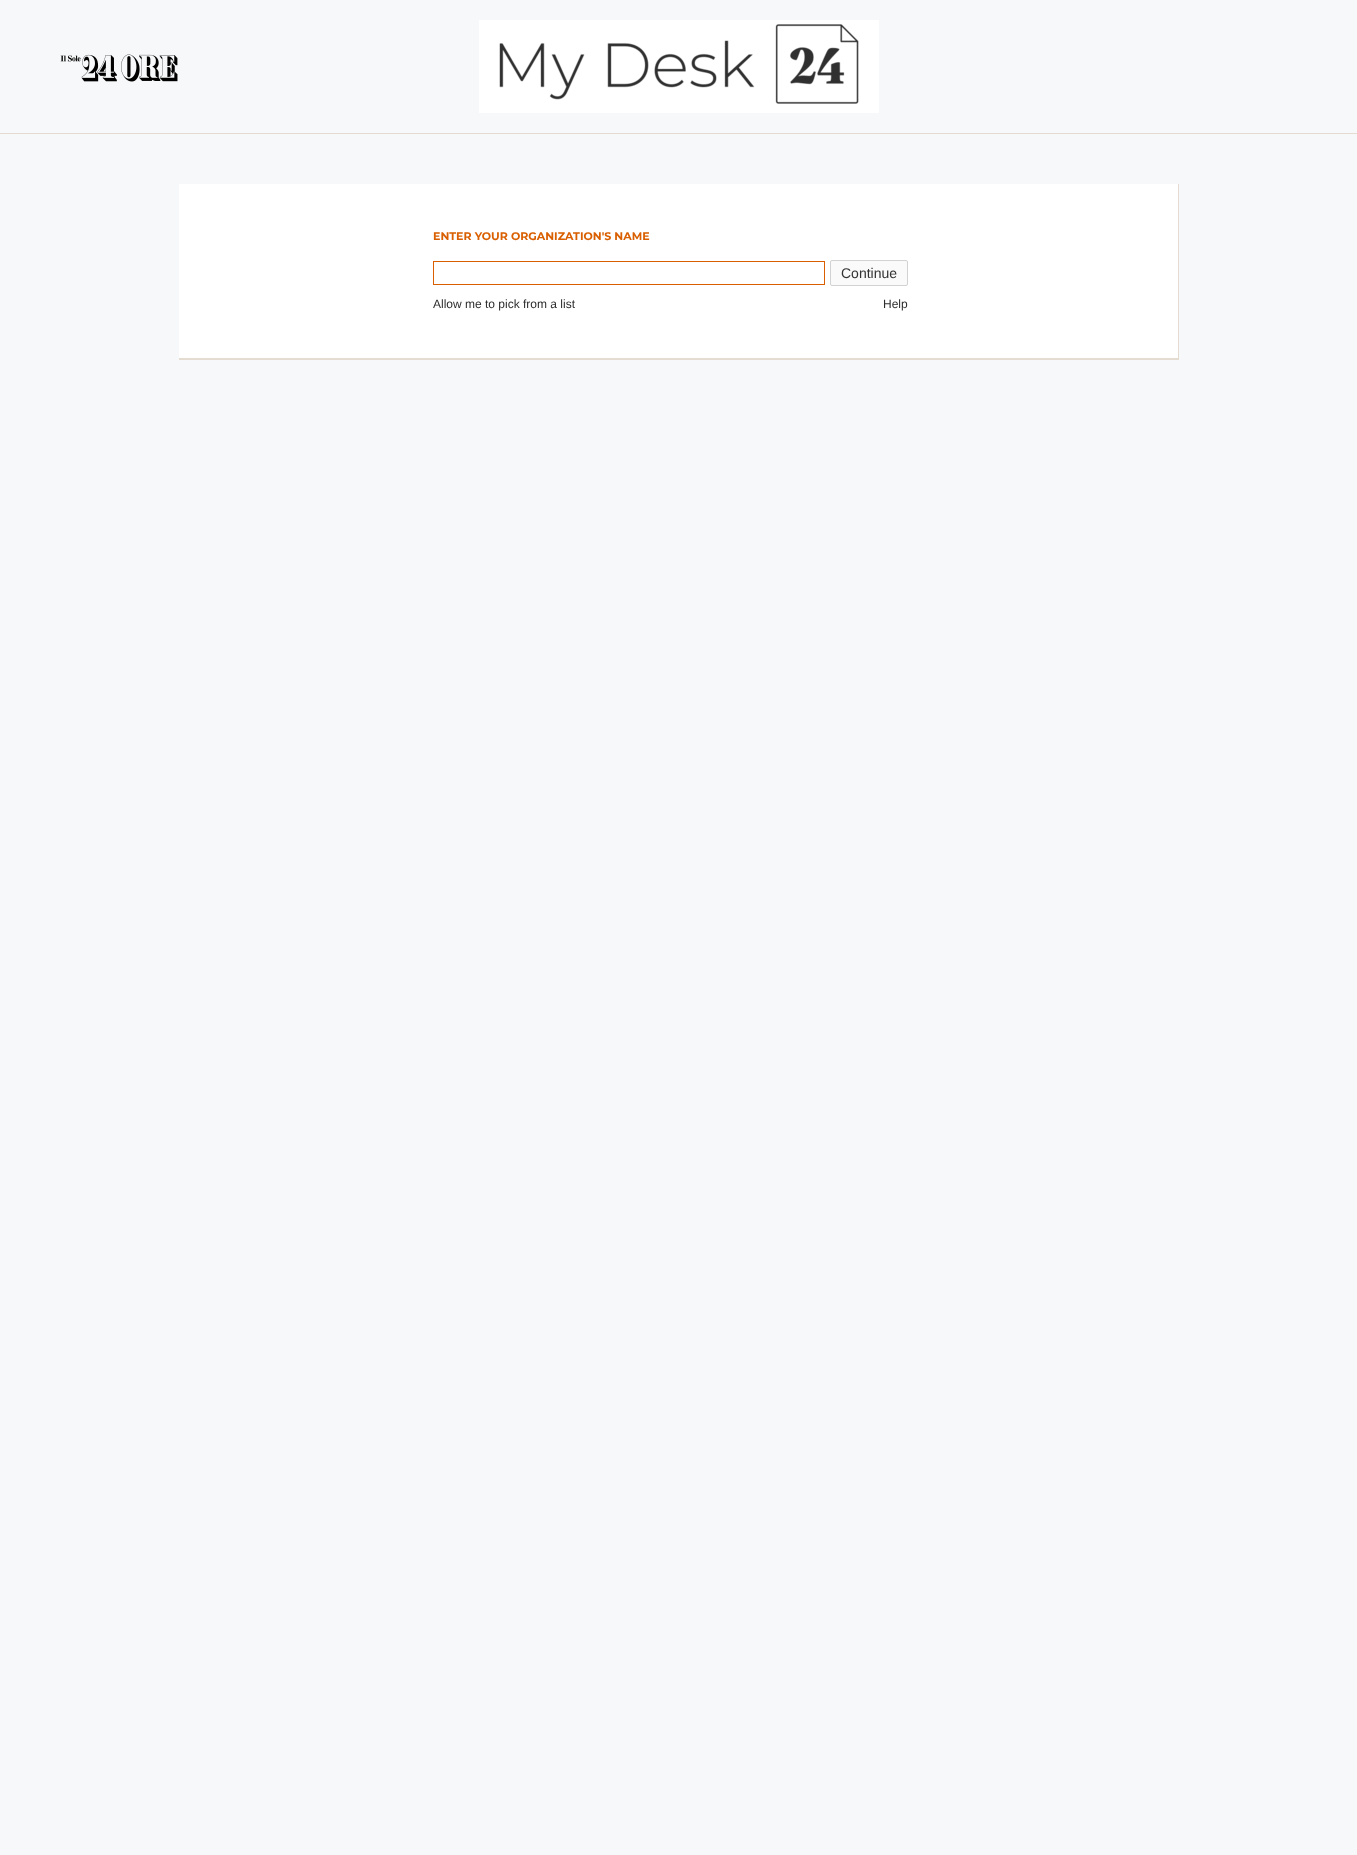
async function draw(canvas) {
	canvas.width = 1357;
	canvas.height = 1855;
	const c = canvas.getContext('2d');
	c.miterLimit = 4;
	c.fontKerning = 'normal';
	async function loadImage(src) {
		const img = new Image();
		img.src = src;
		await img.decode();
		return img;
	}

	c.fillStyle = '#f7f8f9';
	c.fillRect(0, 0, 1357, 1855);
	c.fillStyle = '#e4dcd1';
	c.fillRect(0, 133, 1357, 1);
	c.drawImage(await loadImage('img1.png'), 60, 54, 118, 28);
	c.drawImage(await loadImage('img2.png'), 479, 20, 400, 93);
	for (const [x, y, w, h, color] of [
		[179, 184, 999, 174, '#fff'],
		[1178, 184, 1, 176, '#e4dcd1'],
		[179, 358, 1000, 2, '#e4dcd1'],
	]) {
		c.fillStyle = color;
		c.fillRect(x, y, w, h);
	}
	c.font = 'bold 11px Montserrat';
	c.fillStyle = '#d95f00';
	c.fillText('ENTER YOUR ORGANIZATION\'S NAME', 433, 240);
	c.strokeStyle = '#d95f00';
	c.strokeRect(433.5, 261.5, 391, 23);
	c.fillStyle = '#fafafa';
	c.beginPath();
	c.roundRect(830.5, 260.5, 77, 25, 1.5);
	c.fill();
	c.strokeStyle = '#d2d2d2';
	c.stroke();
	c.font = '14px Liberation Sans';
	c.fillStyle = '#333';
	c.fillText('Continue', 841, 278);
	c.font = '12px Liberation Sans';
	c.fillStyle = '#2d2d2d';
	c.fillText('Allow me to pick from a list', 433, 308);
	c.fillText('Help', 883, 308);
}

draw(document.querySelector('canvas'));
